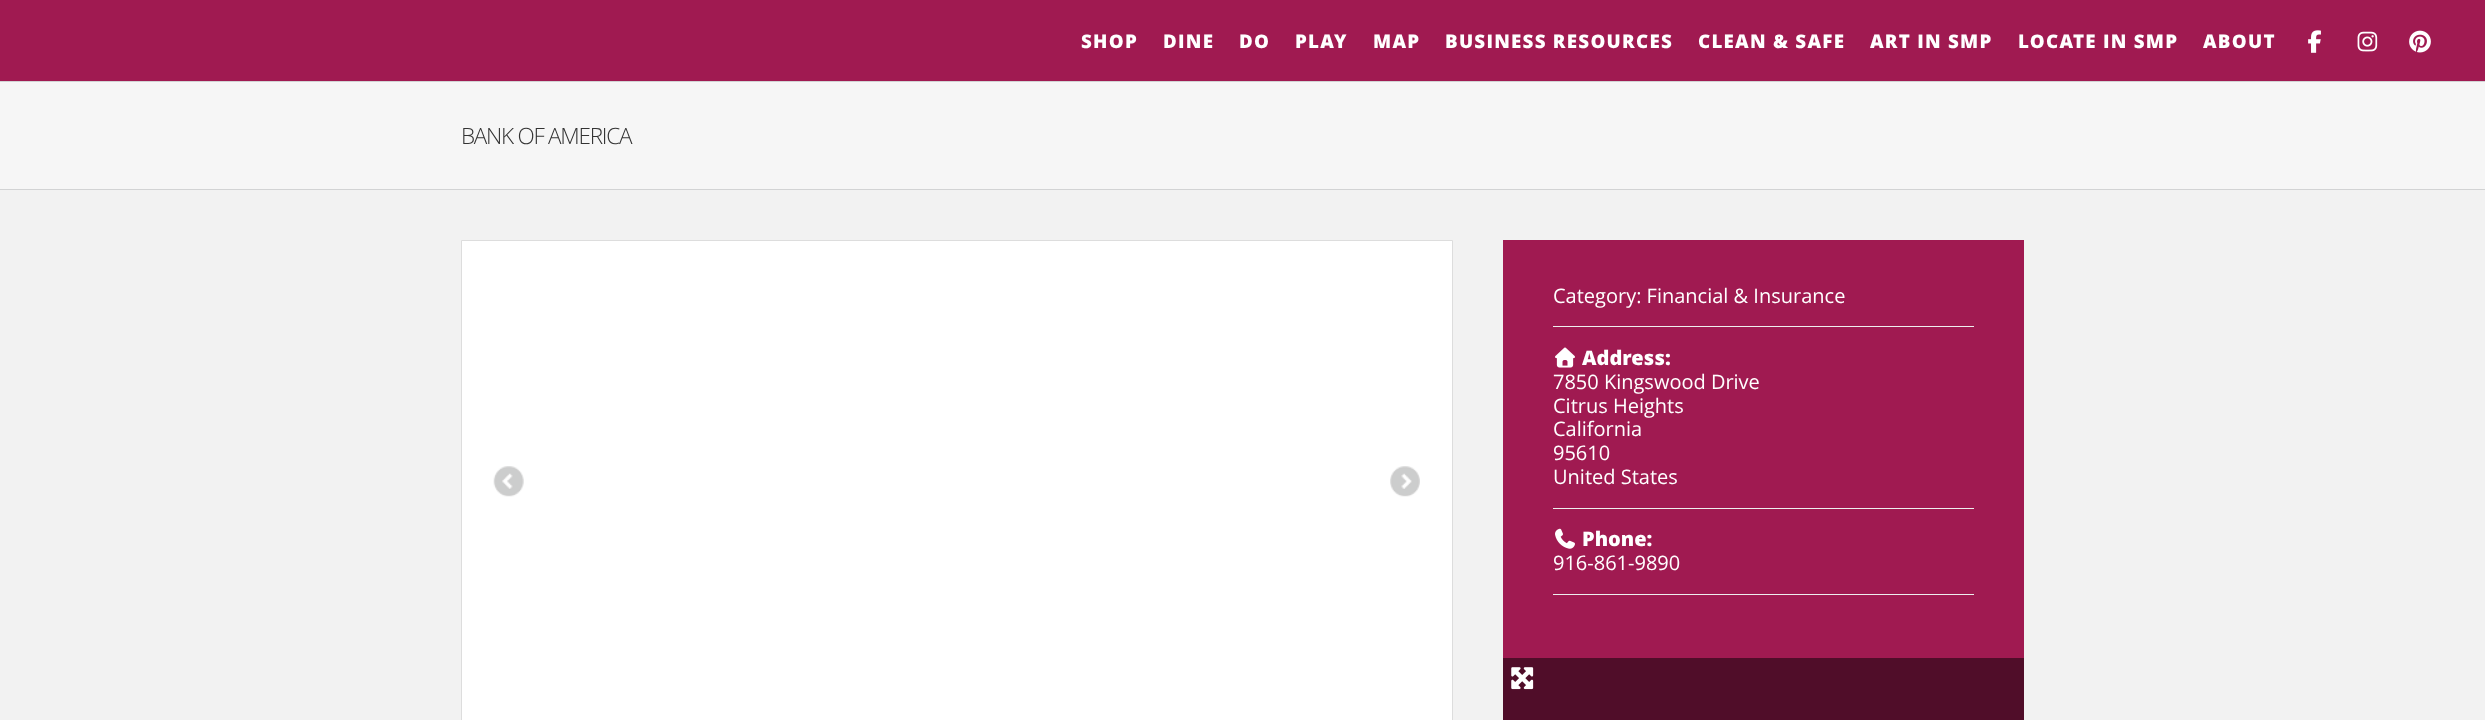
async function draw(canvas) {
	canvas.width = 2485;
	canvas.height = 720;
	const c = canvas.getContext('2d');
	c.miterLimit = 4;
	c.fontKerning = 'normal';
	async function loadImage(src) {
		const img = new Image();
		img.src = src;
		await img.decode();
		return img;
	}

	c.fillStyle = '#f2f2f2';
	c.fillRect(0, 0, 2485, 720);
	c.fillStyle = '#a01a51';
	c.fillRect(0, 0, 2485, 81);
	c.letterSpacing = '1.25px';
	c.font = '800 18.75px Open Sans';
	c.fillStyle = '#fff';
	for (const [text, x, y] of [
		['SHOP', 1081, 48],
		['DINE', 1163, 48],
		['DO', 1239, 48],
		['PLAY', 1295, 48],
		['MAP', 1373, 48],
		['BUSINESS RESOURCES', 1445, 48],
		['CLEAN & SAFE', 1698, 48],
		['ART IN SMP', 1870, 48],
		['LOCATE IN SMP', 2018, 48],
		['ABOUT', 2203, 48],
	]) {
		c.fillText(text, x, y);
	}
	c.drawImage(await loadImage('img1.png'), 2308, 30, 13, 23);
	c.drawImage(await loadImage('img2.png'), 2357, 31, 21, 21);
	c.drawImage(await loadImage('img3.png'), 2409, 30, 22, 23);
	for (const [x, y, w, h, color] of [
		[0, 82, 2485, 107, '#f6f6f6'],
		[0, 81, 2485, 1, '#d2d3d4'],
		[0, 189, 2485, 1, '#d2d3d4'],
	]) {
		c.fillStyle = color;
		c.fillRect(x, y, w, h);
	}
	c.letterSpacing = '-1.25px';
	c.font = '300 22.5px Open Sans';
	c.fillStyle = '#333';
	c.fillText('BANK OF AMERICA', 461, 144);
	c.fillStyle = '#fff';
	c.beginPath();
	c.rect(461.5, 240.5, 991, 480);
	c.fill();
	c.strokeStyle = '#ddd';
	c.stroke();
	c.drawImage(await loadImage('img4.png'), 493, 466, 31, 31);
	c.drawImage(await loadImage('img5.png'), 1390, 466, 30, 31);
	c.fillStyle = '#a01a51';
	c.fillRect(1503, 240, 521, 418);
	c.fillStyle = '#eee';
	c.fillRect(1553, 326, 421, 1);
	c.letterSpacing = '0px';
	c.font = '20px Open Sans';
	c.fillStyle = '#fff';
	c.fillText('Category: Financial & Insurance', 1553, 303);
	c.fillStyle = '#eee';
	c.fillRect(1553, 508, 421, 1);
	c.drawImage(await loadImage('img6.png'), 1555, 347, 20, 21);
	c.font = '800 20px Open Sans';
	c.fillStyle = '#fff';
	c.fillText('Address:', 1582, 365);
	c.font = '20px Open Sans';
	for (const [text, x, y] of [
		['7850 Kingswood Drive', 1553, 389],
		['Citrus Heights', 1553, 413],
		['California', 1553, 436],
		['95610', 1553, 460],
		['United States', 1553, 484],
	]) {
		c.fillText(text, x, y);
	}
	c.fillStyle = '#eee';
	c.fillRect(1553, 594, 421, 1);
	c.drawImage(await loadImage('img7.png'), 1555, 528, 20, 21);
	c.font = '800 20px Open Sans';
	c.fillStyle = '#fff';
	c.fillText('Phone:', 1582, 546);
	c.font = '20px Open Sans';
	c.fillText('916-861-9890', 1553, 570);
	c.fillStyle = '#500d29';
	c.fillRect(1503, 658, 521, 62);
	c.drawImage(await loadImage('img8.png'), 1511, 667, 23, 23);
}

draw(document.querySelector('canvas'));
